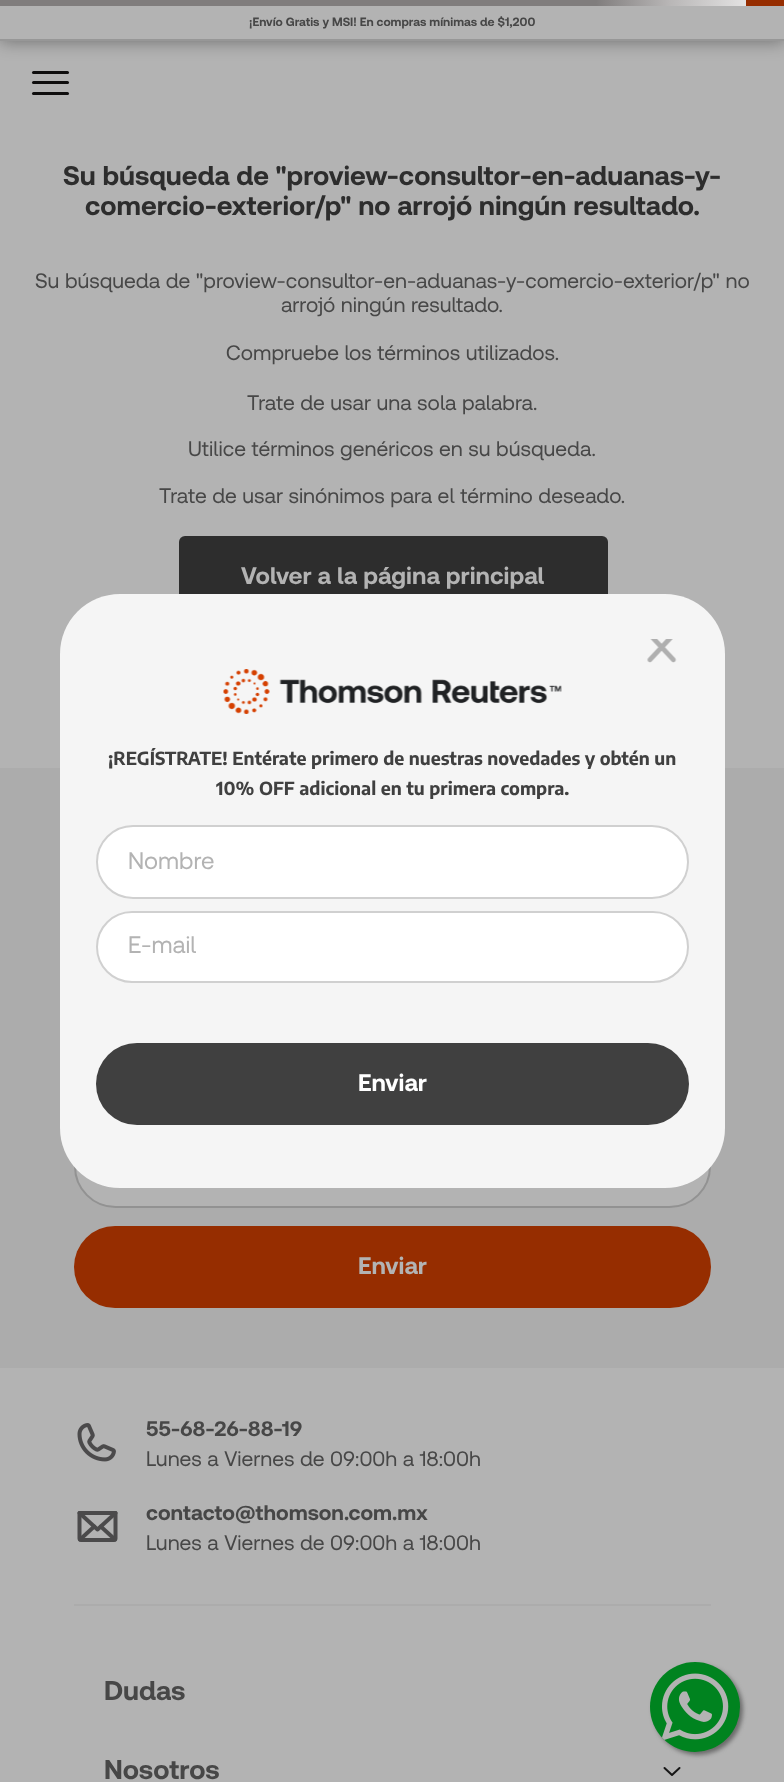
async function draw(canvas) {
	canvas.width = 784;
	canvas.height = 1782;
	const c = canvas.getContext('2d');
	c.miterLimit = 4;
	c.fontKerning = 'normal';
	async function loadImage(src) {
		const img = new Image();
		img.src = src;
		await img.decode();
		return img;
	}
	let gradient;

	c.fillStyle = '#b3b3b3';
	c.fillRect(0, 0, 784, 1782);
	c.fillStyle = '#00000066';
	c.filter = 'blur(9px)';
	c.beginPath();
	c.rect(0, 0, 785, 41);
	c.fill();
	c.filter = 'none';
	gradient = c.createLinearGradient(0, 3, 745, 3);
	gradient.addColorStop(0.8, '#807d7d');
	gradient.addColorStop(0.9, '#b9b7b7');
	gradient.addColorStop(1, '#e3e2e2');
	c.fillStyle = gradient;
	c.fillRect(0, 0, 746, 6);
	for (const [x, y, w, h, color] of [
		[0, 6, 784, 33, '#b3b3b3'],
		[746, 0, 38, 6, '#962d00'],
		[0, 39, 784, 2, '#979797'],
	]) {
		c.fillStyle = color;
		c.fillRect(x, y, w, h);
	}
	c.font = 'bold 12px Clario';
	c.fillStyle = '#474747';
	c.fillText('¡Envío Gratis y MSI! En compras mínimas de $1,200', 249, 26);
	c.fillStyle = '#0f0e0e';
	c.beginPath();
	c.roundRect(32, 71, 37, 3, 1.5);
	c.fill();
	c.beginPath();
	c.roundRect(32, 81, 37, 3, 1.5);
	c.fill();
	c.beginPath();
	c.roundRect(32, 92, 37, 3, 1.5);
	c.fill();
	c.font = 'bold 27px Clario';
	c.fillStyle = '#2d2d2d';
	c.fillText('Su búsqueda de "proview-consultor-en-aduanas-y-', 63, 185);
	c.fillText('comercio-exterior/p" no arrojó ningún resultado.', 85, 215);
	c.font = '21px Clario';
	c.fillStyle = '#474747';
	for (const [text, x, y] of [
		['Su búsqueda de "proview-consultor-en-aduanas-y-comercio-exterior/p" no', 35, 288],
		['arrojó ningún resultado.', 281, 312],
		['Compruebe los términos utilizados.', 226, 360],
		['Trate de usar una sola palabra.', 247, 410],
		['Utilice términos genéricos en su búsqueda.', 188, 456],
		['Trate de usar sinónimos para el término deseado.', 159, 503],
	]) {
		c.fillText(text, x, y);
	}
	c.fillStyle = '#2d2d2d';
	c.beginPath();
	c.roundRect(179, 536, 429, 82, 6);
	c.fill();
	c.font = 'bold 24px Clario';
	c.fillStyle = '#b3b3b3';
	c.fillText('Volver a la página principal', 241, 584);
	c.fillStyle = '#acacac';
	c.fillRect(0, 768, 784, 600);
	c.fillStyle = '#b3b3b3';
	c.beginPath();
	c.roundRect(75, 1126, 635, 81, 40.5);
	c.fill();
	c.strokeStyle = '#929292';
	c.lineWidth = 2;
	c.stroke();
	c.fillStyle = '#962d00';
	c.beginPath();
	c.roundRect(74, 1226, 637, 82, 41);
	c.fill();
	c.fillStyle = '#b3b3b3';
	c.fillText('Enviar', 358, 1274);
	c.fillStyle = '#acacac';
	c.fillRect(74, 1604, 637, 2);
	c.drawImage(await loadImage('img1.png'), 77, 1423, 39, 39);
	c.font = 'bold 21px Clario';
	c.fillStyle = '#474747';
	c.fillText('55-68-26-88-19', 146, 1436);
	c.font = '21px Clario';
	c.fillText('Lunes a Viernes de 09:00h a 18:00h', 146, 1466);
	c.drawImage(await loadImage('img2.png'), 77, 1511, 41, 31);
	c.font = 'bold 21px Clario';
	c.fillText('contacto@thomson.com.mx', 146, 1520);
	c.font = '21px Clario';
	c.fillText('Lunes a Viernes de 09:00h a 18:00h', 146, 1550);
	c.font = 'bold 27px Clario';
	c.fillText('Dudas', 104, 1700);
	c.fillText('Nosotros', 104, 1779);
	c.beginPath();
	c.moveTo(664.5, 1768);
	c.lineTo(672, 1775);
	c.lineTo(679.5, 1768);
	c.strokeStyle = '#171717';
	c.lineCap = 'round';
	c.lineJoin = 'round';
	c.stroke();
	c.fillStyle = '#f5f5f5';
	c.beginPath();
	c.roundRect(60, 594, 665, 594, 60);
	c.fill();
	c.drawImage(await loadImage('img3.png'), 223, 669, 339, 45);
	c.drawImage(await loadImage('img4.png'), 647, 639, 30, 24);
	c.font = 'bold 18px Encode Sans Condensed';
	c.fillStyle = '#404040';
	c.fillText('¡REGÍSTRATE! Entérate primero de nuestras novedades y obtén un', 108, 765);
	c.fillText('10% OFF adicional en tu primera compra.', 216, 795);
	c.fillStyle = '#fff';
	c.beginPath();
	c.roundRect(97, 826, 591, 72, 36);
	c.fill();
	c.strokeStyle = '#d0d0d0';
	c.lineJoin = 'miter';
	c.stroke();
	c.font = '24px Clario';
	c.fillStyle = '#b3b3b3';
	c.fillText('Nombre', 128, 869);
	c.fillStyle = '#fff';
	c.beginPath();
	c.roundRect(97, 912, 591, 70, 35);
	c.fill();
	c.stroke();
	c.fillStyle = '#b3b3b3';
	c.fillText('E-mail', 128, 953);
	c.fillStyle = '#404040';
	c.beginPath();
	c.roundRect(96, 1043, 593, 82, 41);
	c.fill();
	c.font = 'bold 24px Clario';
	c.fillStyle = '#fff';
	c.fillText('Enviar', 358, 1091);
	c.fillStyle = '#6b6b6b';
	c.filter = 'blur(2px)';
	c.beginPath();
	c.roundRect(653, 1665, 90, 90, 45);
	c.fill();
	c.filter = 'none';
	c.fillStyle = '#00831f';
	c.beginPath();
	c.arc(695, 1707, 45, 0, 2 * Math.PI);
	c.fill();
	c.drawImage(await loadImage('img5.png'), 662, 1673, 67, 67);
}

draw(document.querySelector('canvas'));
